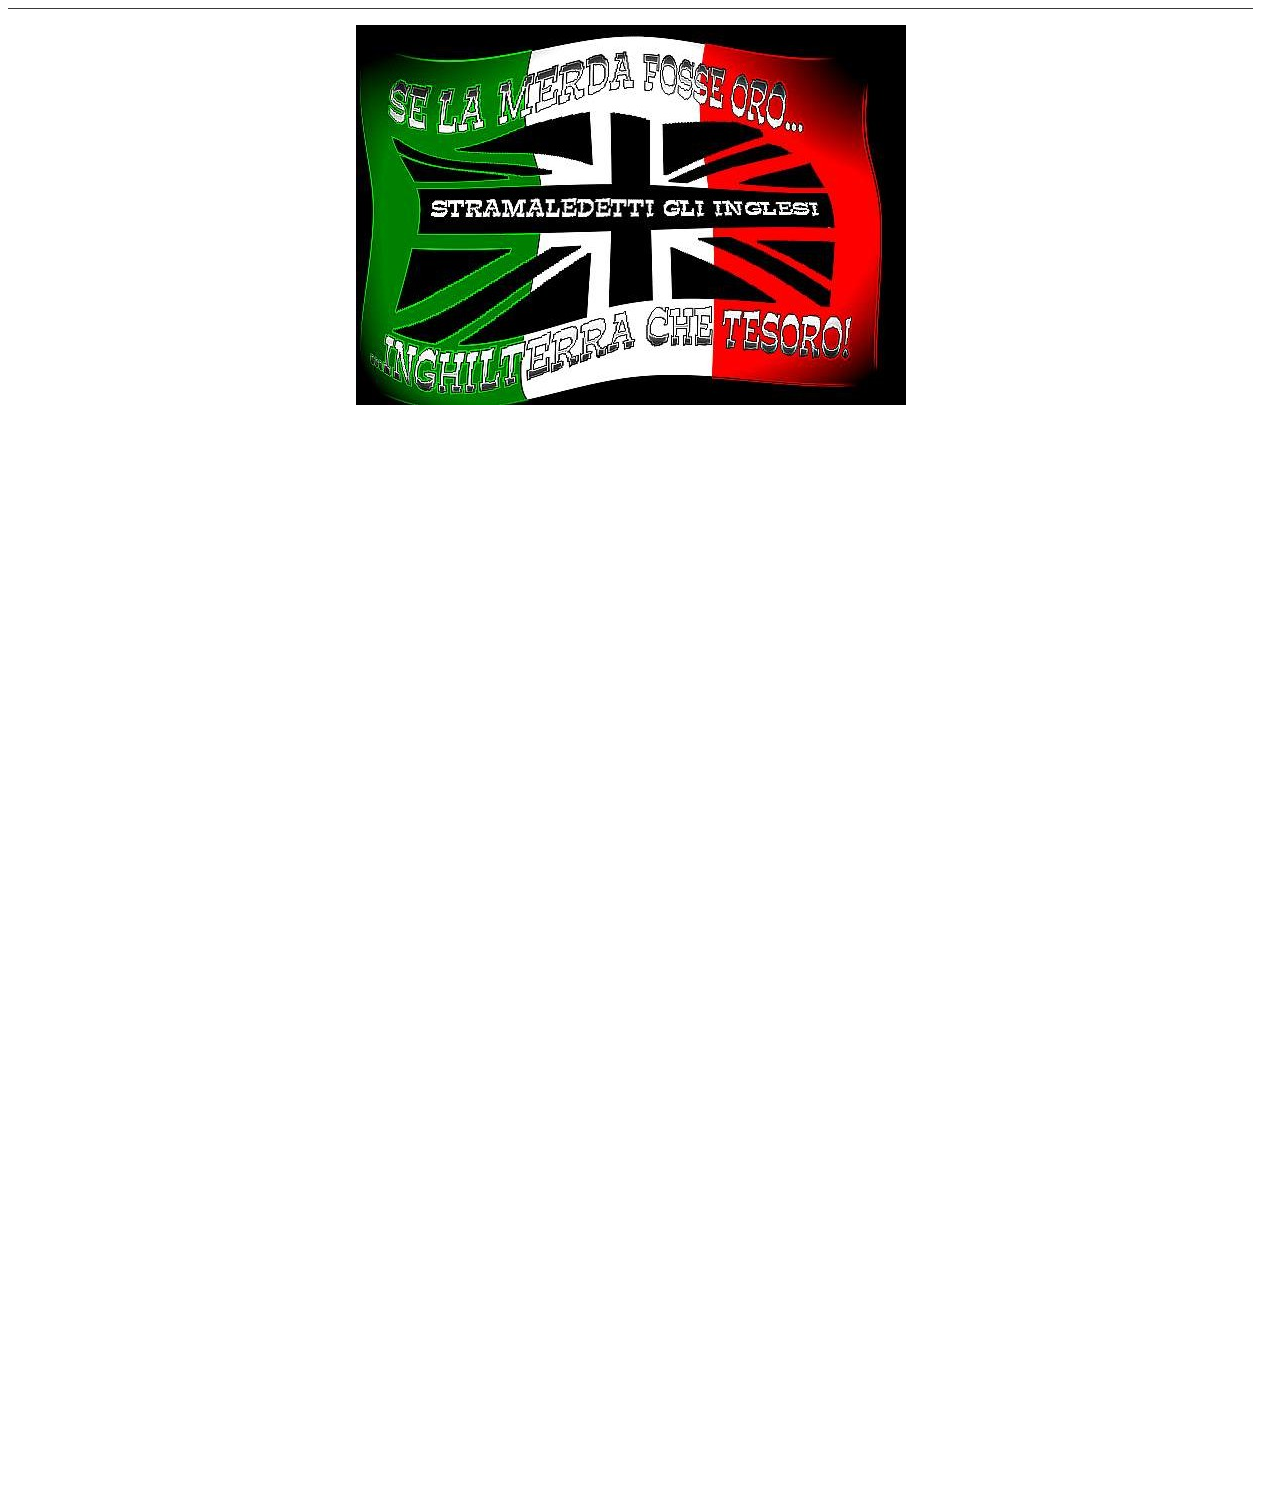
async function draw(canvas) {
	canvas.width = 1261;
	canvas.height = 1489;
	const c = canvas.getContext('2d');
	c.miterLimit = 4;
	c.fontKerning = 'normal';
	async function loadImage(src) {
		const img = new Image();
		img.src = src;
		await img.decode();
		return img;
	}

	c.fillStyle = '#fff';
	c.fillRect(0, 0, 1261, 1489);
	c.fillStyle = '#393939';
	c.fillRect(8, 8, 1245, 1);
	c.drawImage(await loadImage('img1.png'), 356, 25, 550, 380);
}

draw(document.querySelector('canvas'));
